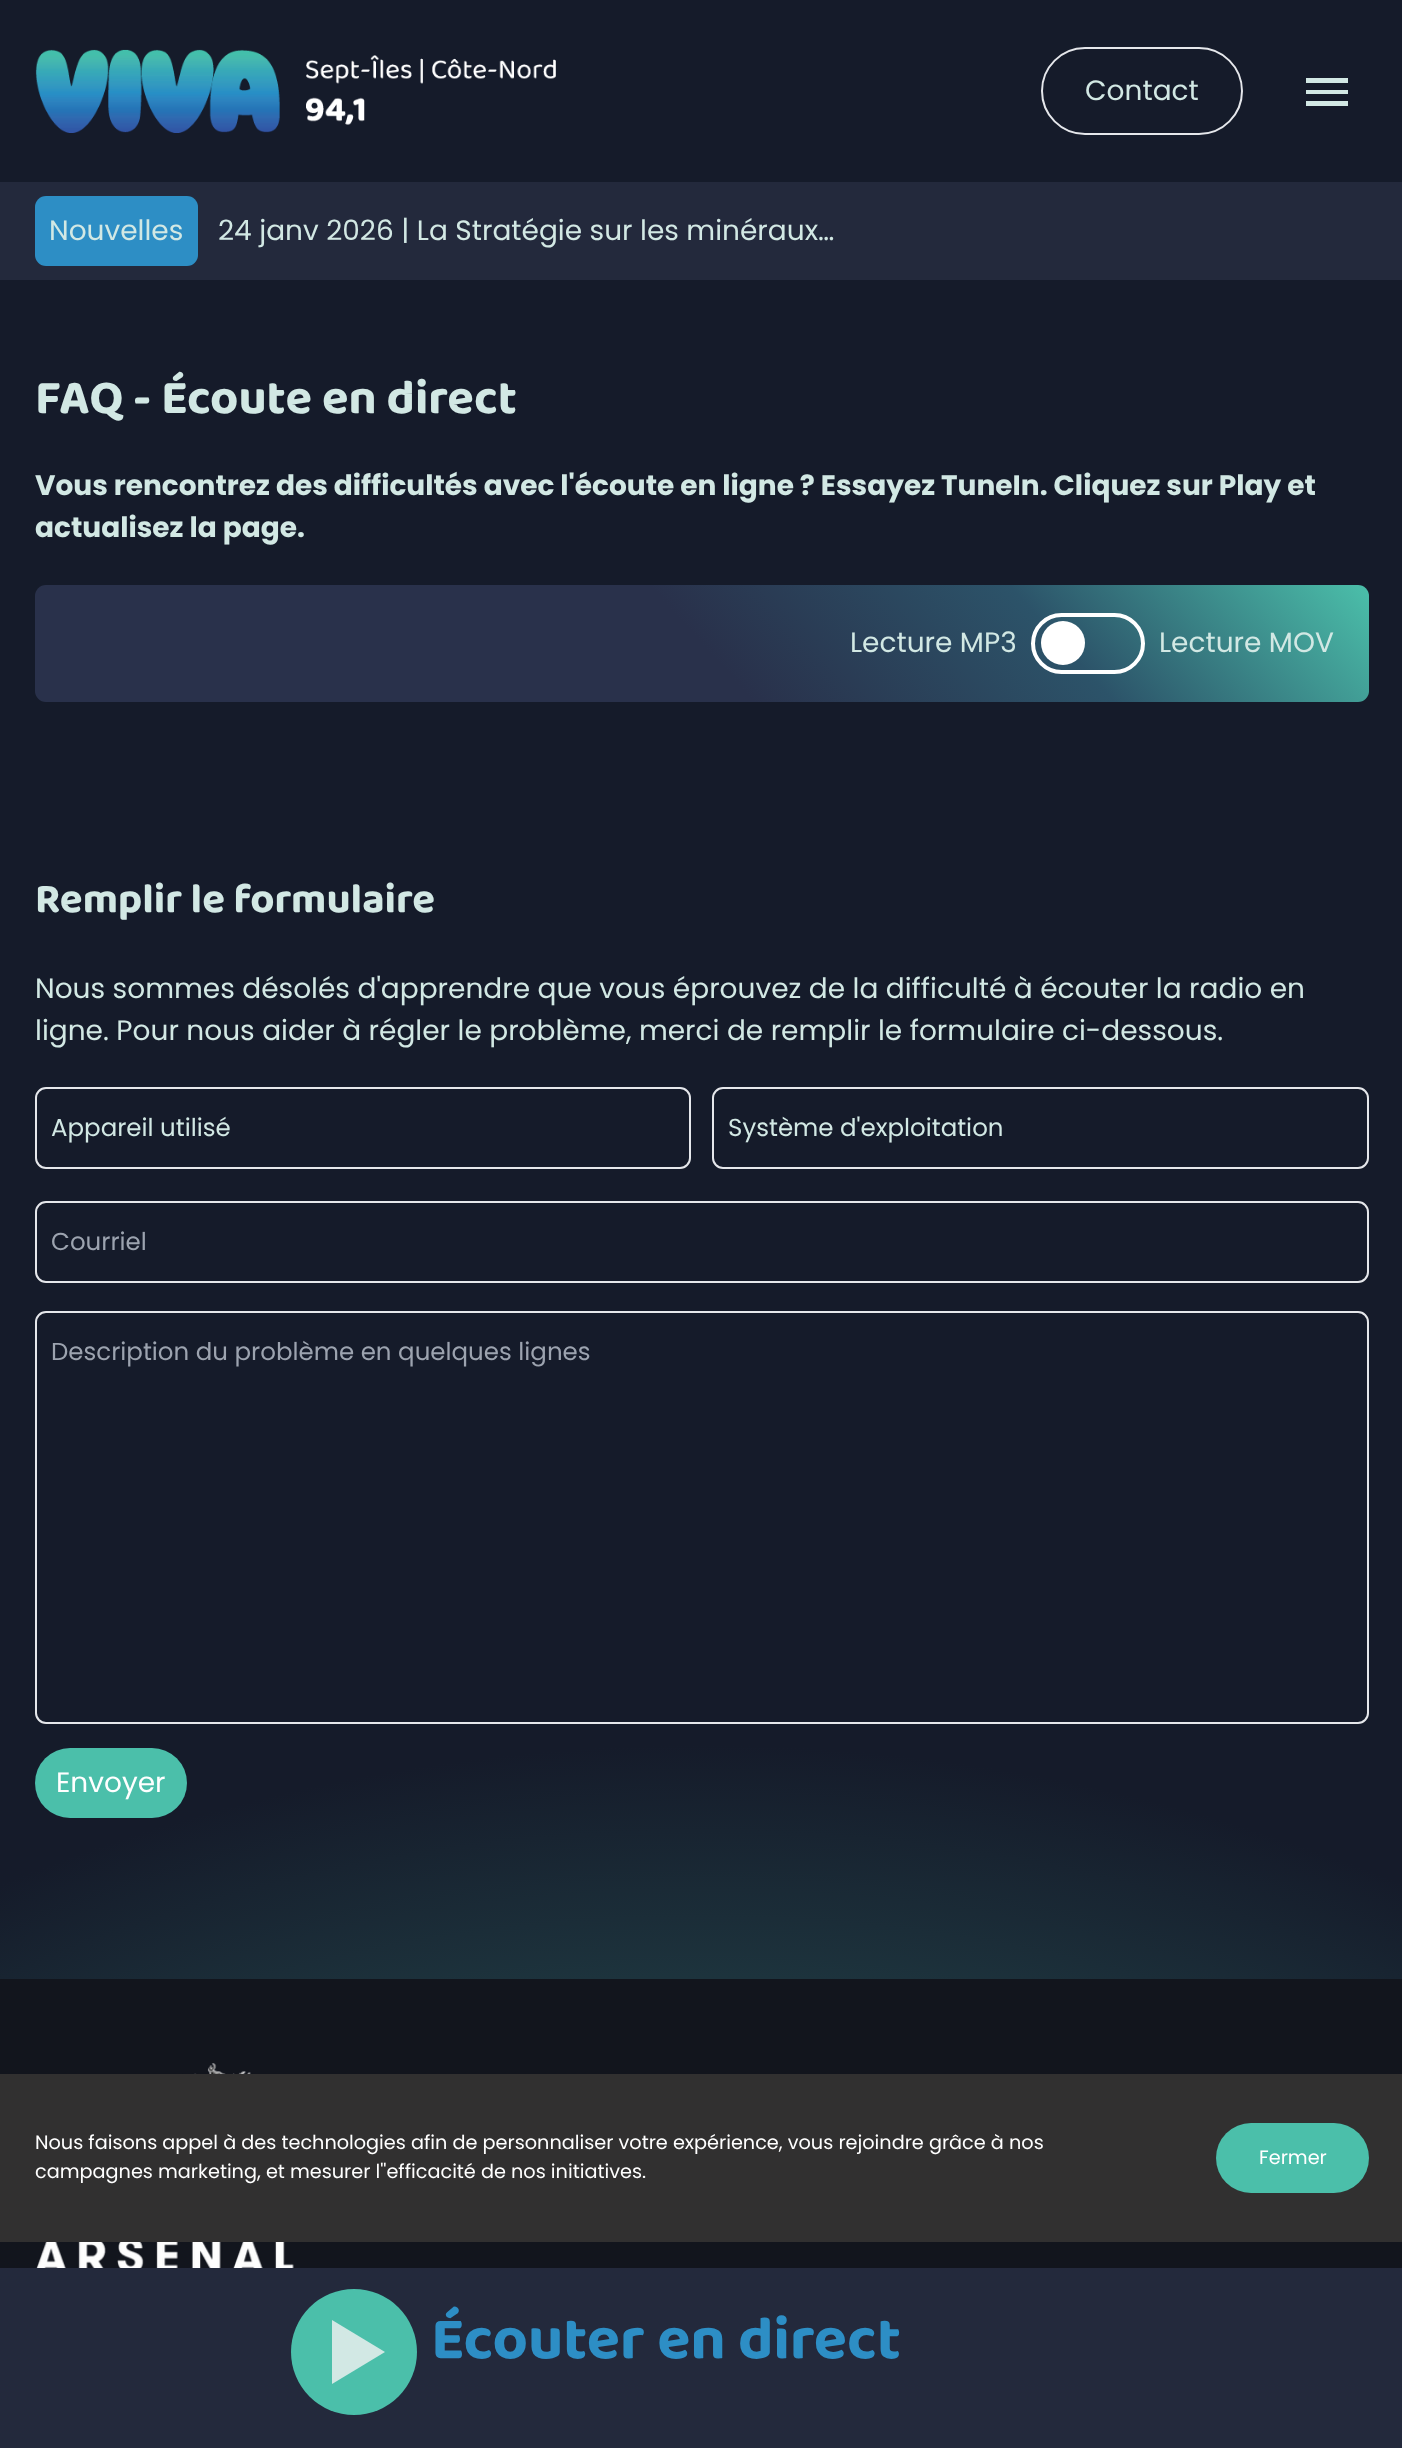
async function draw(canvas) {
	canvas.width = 1402;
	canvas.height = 2448;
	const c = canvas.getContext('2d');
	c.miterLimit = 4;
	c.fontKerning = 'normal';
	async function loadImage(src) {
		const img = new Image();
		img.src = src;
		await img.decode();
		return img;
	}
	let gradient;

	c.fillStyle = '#fff';
	c.fillRect(0, 0, 1402, 2448);
	gradient = c.createRadialGradient(702, 3583.56, 0, 702, 3583.56, 3270);
	gradient.addColorStop(0.04, '#4bbfaa');
	gradient.addColorStop(0.54, '#151b2a');
	c.fillStyle = gradient;
	c.beginPath();
	c.rect(0, 0, 1402, 1979);
	c.save();
	c.clip();
	c.scale(1, 3139 / 3270);
	c.fillRect(0, 0, 1402, 2551);
	c.restore();
	c.drawImage(await loadImage('img1.png'), 35, 49, 521, 84);
	c.beginPath();
	c.roundRect(1042, 48, 200, 86, 43);
	c.strokeStyle = '#e5e7eb';
	c.lineWidth = 2;
	c.stroke();
	c.font = '28px Poppins';
	c.fillStyle = '#d2e8e4';
	c.fillText('Contact', 1085, 100);
	c.beginPath();
	c.moveTo(1306, 106);
	c.lineTo(1348, 106);
	c.lineTo(1348, 101);
	c.lineTo(1306, 101);
	c.closePath();
	c.moveTo(1306, 94);
	c.lineTo(1348, 94);
	c.lineTo(1348, 90);
	c.lineTo(1306, 90);
	c.closePath();
	c.moveTo(1306, 78);
	c.lineTo(1306, 83);
	c.lineTo(1348, 83);
	c.lineTo(1348, 78);
	c.closePath();
	c.fill();
	c.fillStyle = '#23293c';
	c.fillRect(0, 2268, 1402, 180);
	c.fillStyle = '#4bbfaa';
	c.beginPath();
	c.arc(354, 2352, 63, 0, 2 * Math.PI);
	c.fill();
	c.fillStyle = '#d2e8e4';
	c.beginPath();
	c.moveTo(332, 2320);
	c.lineTo(385, 2352);
	c.lineTo(332, 2384);
	c.closePath();
	c.fill();
	c.font = 'bold 61.25px "Baloo Bhai 2"';
	c.fillStyle = '#2d8ec5';
	c.fillText('Écouter en direct', 431, 2358);
	c.fillStyle = '#23293c';
	c.fillRect(0, 182, 1402, 98);
	c.fillStyle = '#2d8ec5';
	c.beginPath();
	c.roundRect(35, 196, 163, 70, 11);
	c.fill();
	c.font = '28px Poppins';
	c.fillStyle = '#d2e8e4';
	c.fillText('Nouvelles', 49, 240);
	c.fillText('24 janv 2026 | La Stratégie sur les minéraux…', 218, 240);
	c.font = 'bold 49px "Baloo Bhai 2"';
	c.fillText('FAQ - Écoute en direct', 35, 413);
	c.font = 'bold 28px Poppins';
	c.fillText('Vous rencontrez des difficultés avec l\'écoute en ligne ? Essayez TuneIn. Cliquez sur Play et', 35, 495);
	c.fillText('actualisez la page.', 35, 537);
	gradient = c.createLinearGradient(1099, 285, 304, 1001);
	gradient.addColorStop(0, '#4bbfaa');
	gradient.addColorStop(0.25, '#2c5369');
	gradient.addColorStop(0.5, '#29314b');
	c.fillStyle = gradient;
	c.beginPath();
	c.roundRect(35, 585, 1334, 117, 11);
	c.fill();
	c.font = '28px Poppins';
	c.fillStyle = '#d2e8e4';
	c.fillText('Lecture MP3', 850, 652);
	c.beginPath();
	c.roundRect(1033, 615, 110, 57, 28.5);
	c.strokeStyle = '#fff';
	c.lineWidth = 4;
	c.stroke();
	c.fillStyle = '#fff';
	c.beginPath();
	c.arc(1063, 643, 22, 0, 2 * Math.PI);
	c.fill();
	c.fillStyle = '#d2e8e4';
	c.fillText('Lecture MOV', 1159, 652);
	c.font = 'bold 42px "Baloo Bhai 2"';
	c.fillText('Remplir le formulaire', 35, 912);
	c.font = '28px Poppins';
	c.fillText('Nous sommes désolés d\'apprendre que vous éprouvez de la difficulté à écouter la radio en', 35, 998);
	c.fillText('ligne. Pour nous aider à régler le problème, merci de remplir le formulaire ci-dessous.', 35, 1040);
	c.beginPath();
	c.roundRect(36, 1088, 654, 80, 10);
	c.strokeStyle = '#e5e7eb';
	c.lineWidth = 2;
	c.stroke();
	c.font = '24.5px Poppins';
	c.fillText('Appareil utilisé', 51, 1136);
	c.beginPath();
	c.roundRect(713, 1088, 655, 80, 10);
	c.stroke();
	c.fillText('Système d\'exploitation', 728, 1136);
	c.beginPath();
	c.roundRect(36, 1202, 1332, 80, 10);
	c.stroke();
	c.fillStyle = '#9ca3af';
	c.fillText('Courriel', 51, 1250);
	c.beginPath();
	c.roundRect(36, 1312, 1332, 411, 10);
	c.stroke();
	c.fillText('Description du problème en quelques lignes', 51, 1360);
	c.fillStyle = '#4bbfaa';
	c.beginPath();
	c.roundRect(35, 1748, 152, 70, 35);
	c.fill();
	c.font = '28px Poppins';
	c.fillStyle = '#fff';
	c.fillText('Envoyer', 56, 1792);
	c.fillStyle = '#12151d';
	c.fillRect(0, 1979, 1402, 289);
	c.drawImage(await loadImage('img2.png'), 36, 2063, 258, 205);
	c.fillStyle = '#313030';
	c.fillRect(0, 2074, 1402, 168);
	c.font = '19.25px Poppins';
	c.fillStyle = '#fff';
	c.fillText('Nous faisons appel à des technologies afin de personnaliser votre expérience, vous rejoindre grâce à nos', 35, 2149);
	c.fillText('campagnes marketing, et mesurer l\'\'efficacité de nos initiatives.', 35, 2178);
	c.fillStyle = '#4bbfaa';
	c.beginPath();
	c.roundRect(1216, 2123, 153, 70, 35);
	c.fill();
	c.fillStyle = '#fff';
	c.fillText('Fermer', 1259, 2164);
}

draw(document.querySelector('canvas'));
